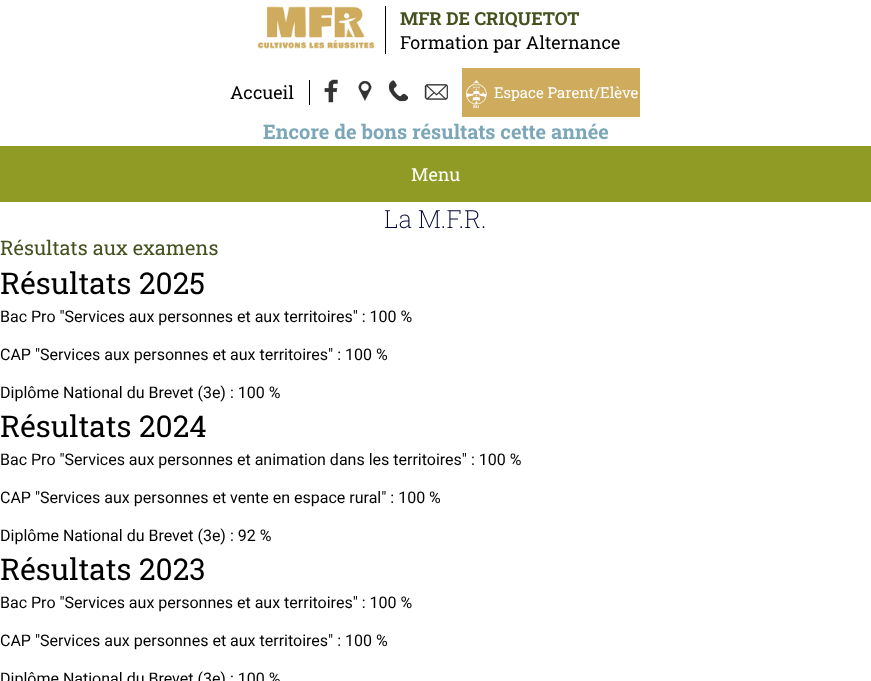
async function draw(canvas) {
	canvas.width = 871;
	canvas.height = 681;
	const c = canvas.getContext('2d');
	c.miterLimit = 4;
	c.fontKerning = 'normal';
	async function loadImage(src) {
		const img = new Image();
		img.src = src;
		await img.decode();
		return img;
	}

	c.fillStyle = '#fff';
	c.fillRect(0, 0, 871, 681);
	c.drawImage(await loadImage('img1.png'), 257, 6, 118, 43);
	c.fillStyle = '#000';
	c.fillRect(385, 6, 1, 48);
	c.font = 'bold 18px Roboto Slab';
	c.fillStyle = '#45521f';
	c.fillText('MFR DE CRIQUETOT', 400, 25);
	c.font = '18px Roboto Slab';
	c.fillStyle = '#000';
	c.fillText('Formation par Alternance', 400, 49);
	c.fillRect(309, 80, 1, 25);
	c.fillText('Accueil', 230, 99);
	c.drawImage(await loadImage('img2.png'), 324, 79, 14, 24);
	c.drawImage(await loadImage('img3.png'), 358, 81, 14, 20);
	c.drawImage(await loadImage('img4.png'), 389, 80, 19, 22);
	c.drawImage(await loadImage('img5.png'), 424, 84, 24, 16);
	c.fillStyle = '#ceab5d';
	c.fillRect(462, 68, 178, 49);
	c.drawImage(await loadImage('img6.png'), 466, 79, 21, 30);
	c.font = '15px Roboto Slab';
	c.fillStyle = '#fff';
	c.fillText('Espace Parent/Elève', 494, 98);
	c.font = 'bold 20px Roboto Slab';
	c.fillStyle = '#7ca7b9';
	c.fillText('Encore de bons résultats cette année', 263, 139);
	c.fillStyle = '#909b25';
	c.fillRect(0, 146, 871, 56);
	c.font = '18px Roboto Slab';
	c.fillStyle = '#fff';
	c.fillText('Menu', 411, 181);
	c.font = '200 25px Roboto Slab';
	c.fillStyle = '#000333';
	c.fillText('La M.F.R.', 384, 228);
	c.font = '20px Roboto Slab';
	c.fillStyle = '#45521f';
	c.fillText('Résultats aux examens', 0, 255);
	c.font = '30px Roboto Slab';
	c.fillStyle = '#000';
	c.fillText('Résultats 2025', 0, 294);
	c.font = '16px Roboto';
	for (const [text, x, y] of [
		['Bac Pro "Services aux personnes et aux territoires" : 100 %', 0, 322],
		['CAP "Services aux personnes et aux territoires" : 100 %', 0, 360],
		['Diplôme National du Brevet (3e) : 100 %', 0, 398],
	]) {
		c.fillText(text, x, y);
	}
	c.font = '30px Roboto Slab';
	c.fillText('Résultats 2024', 0, 437);
	c.font = '16px Roboto';
	for (const [text, x, y] of [
		['Bac Pro "Services aux personnes et animation dans les territoires" : 100 %', 0, 465],
		['CAP "Services aux personnes et vente en espace rural" : 100 %', 0, 503],
		['Diplôme National du Brevet (3e) : 92 %', 0, 541],
	]) {
		c.fillText(text, x, y);
	}
	c.font = '30px Roboto Slab';
	c.fillText('Résultats 2023', 0, 580);
	c.font = '16px Roboto';
	for (const [text, x, y] of [
		['Bac Pro "Services aux personnes et aux territoires" : 100 %', 0, 608],
		['CAP "Services aux personnes et aux territoires" : 100 %', 0, 646],
		['Diplôme National du Brevet (3e) : 100 %', 0, 684],
	]) {
		c.fillText(text, x, y);
	}
}

draw(document.querySelector('canvas'));
